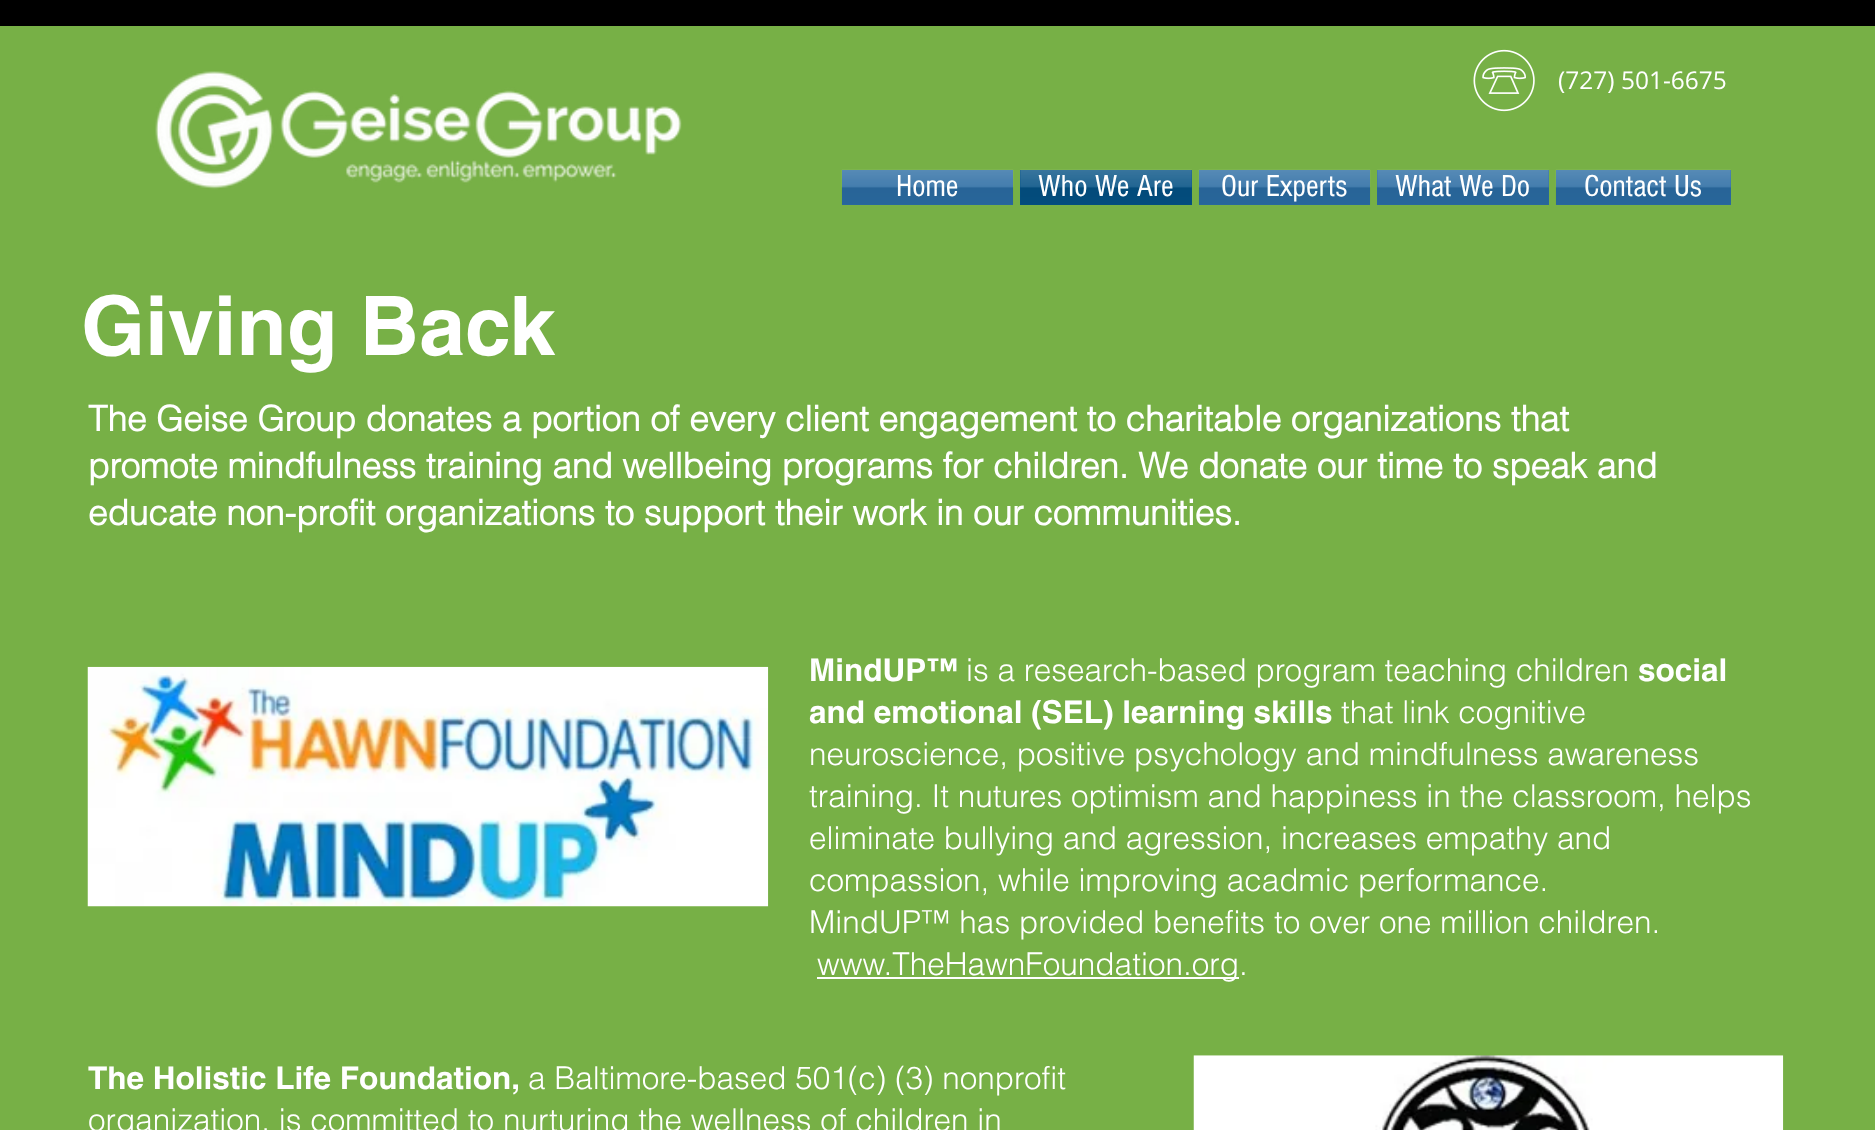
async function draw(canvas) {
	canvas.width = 1875;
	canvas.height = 1130;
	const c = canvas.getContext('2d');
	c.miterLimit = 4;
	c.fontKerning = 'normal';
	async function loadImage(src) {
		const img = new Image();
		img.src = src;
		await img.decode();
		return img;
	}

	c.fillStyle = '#77b046';
	c.fillRect(0, 0, 1875, 1130);
	c.fillStyle = '#000';
	c.fillRect(0, 0, 1875, 26);
	c.drawImage(await loadImage('img1.png'), 155, 71, 527, 119);
	c.drawImage(await loadImage('img2.png'), 1473, 49, 62, 63);
	c.font = '24.5px Open Sans';
	c.fillStyle = '#fff';
	c.fillText('(727) 501-6675', 1558, 89);
	c.fillStyle = '#2b6ca3';
	c.fillRect(842, 170, 171, 35);
	c.drawImage(await loadImage('img3.png'), 841, 169, 173, 36);
	c.font = '31.5px "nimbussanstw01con"';
	c.fillStyle = '#fff';
	c.fillText('Home', 896, 196);
	c.fillStyle = '#045184';
	c.fillRect(1020, 170, 172, 35);
	c.drawImage(await loadImage('img4.png'), 1020, 169, 172, 36);
	c.fillStyle = '#fff';
	c.fillText('Who We Are', 1038, 196);
	c.fillStyle = '#2b6ca3';
	c.fillRect(1199, 170, 171, 35);
	c.drawImage(await loadImage('img3.png'), 1198, 169, 173, 36);
	c.fillStyle = '#fff';
	c.fillText('Our Experts', 1221, 196);
	c.fillStyle = '#2b6ca3';
	c.fillRect(1377, 170, 172, 35);
	c.drawImage(await loadImage('img5.png'), 1377, 169, 172, 36);
	c.fillStyle = '#fff';
	c.fillText('What We Do', 1395, 196);
	c.fillStyle = '#2b6ca3';
	c.fillRect(1556, 170, 175, 35);
	c.drawImage(await loadImage('img6.png'), 1555, 169, 176, 36);
	c.fillStyle = '#fff';
	c.fillText('Contact Us', 1584, 196);
	c.font = 'bold 82.25px helvetica';
	c.fillText('Giving Back', 81, 355);
	c.font = 'bold 35px "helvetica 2"';
	for (const [text, x, y] of [
		['The Geise Group donates a portion of every client engagement to charitable organizations that', 88, 431],
		['promote mindfulness training and wellbeing programs for children. We donate our time to speak and', 88, 478],
		['educate non-profit organizations to support their work in our communities.', 88, 525],
	]) {
		c.fillText(text, x, y);
	}
	c.drawImage(await loadImage('img7.png'), 87, 666, 682, 241);
	c.font = 'bold 31.5px helvetica';
	c.fillText('MindUP™', 809, 681);
	c.font = '300 31.5px helvetica';
	c.fillText('is a research-based program teaching children', 966, 681);
	c.font = 'bold 31.5px helvetica';
	c.fillText('social', 1638, 681);
	c.fillText('and emotional (SEL) learning skills', 809, 723);
	c.font = '300 31.5px helvetica';
	for (const [text, x, y] of [
		['that link cognitive', 1341, 723],
		['neuroscience, positive psychology and mindfulness awareness', 809, 765],
		['training. It nutures optimism and happiness in the classroom, helps', 809, 807],
		['eliminate bullying and agression, increases empathy and', 809, 849],
		['compassion, while improving acadmic performance.', 809, 891],
		['MindUP™ has provided benefits to over one million children.', 809, 933],
	]) {
		c.fillText(text, x, y);
	}
	c.fillRect(817, 977, 422, 2);
	c.fillText('www.TheHawnFoundation.org.', 817, 975);
	c.font = 'bold 31.5px helvetica';
	c.fillText('The Holistic Life Foundation,', 88, 1089);
	c.font = '300 31.5px helvetica';
	c.fillText('a Baltimore-based 501(c) (3) nonprofit', 528, 1089);
	c.fillText('organization, is committed to nurturing the wellness of children in', 88, 1131);
	c.drawImage(await loadImage('img8.png'), 1193, 1055, 591, 75);
}

draw(document.querySelector('canvas'));
